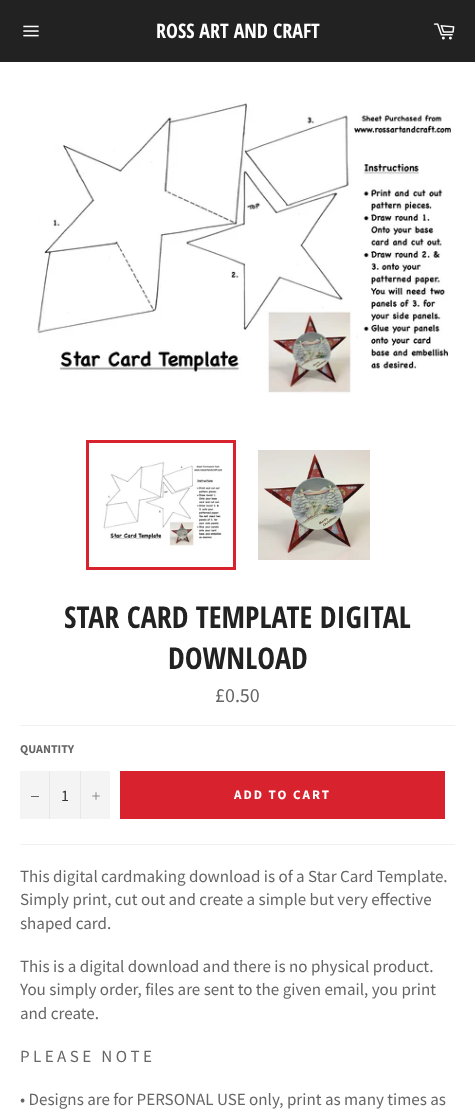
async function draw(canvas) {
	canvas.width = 475;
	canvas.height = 1114;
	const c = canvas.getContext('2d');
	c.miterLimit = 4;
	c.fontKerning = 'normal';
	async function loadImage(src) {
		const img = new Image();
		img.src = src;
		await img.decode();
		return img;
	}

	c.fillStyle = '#222';
	c.fillRect(0, 0, 475, 1114);
	c.drawImage(await loadImage('img1.png'), 23, 25, 16, 12);
	c.font = 'bold 20px Open Sans Condensed';
	c.fillStyle = '#fff';
	c.fillText('ROSS ART AND CRAFT', 156, 38);
	c.drawImage(await loadImage('img2.png'), 433, 23, 22, 17);
	c.fillRect(0, 62, 475, 1052);
	c.drawImage(await loadImage('img3.png'), 37, 103, 416, 291);
	c.drawImage(await loadImage('img4.png'), 103, 462, 120, 84);
	c.strokeStyle = '#d8232f';
	c.lineWidth = 3;
	c.strokeRect(87.5, 441.5, 147, 127);
	c.drawImage(await loadImage('img5.png'), 258, 450, 112, 110);
	c.font = 'bold 30px Open Sans Condensed';
	c.fillStyle = '#222';
	c.fillText('STAR CARD TEMPLATE DIGITAL', 64, 628);
	c.fillText('DOWNLOAD', 168, 669);
	c.font = '20px Source Sans Pro';
	c.fillStyle = '#666';
	c.fillText('£0.50', 215, 702);
	c.fillStyle = '#f0f0f0';
	c.fillRect(20, 725, 435, 1);
	c.font = 'bold 12px Source Sans Pro';
	c.fillStyle = '#666';
	c.fillText('QUANTITY', 20, 753);
	for (const [x, y, w, h, color] of [
		[20, 771, 90, 48, '#f4f4f4'],
		[49, 771, 1, 48, '#e7e7e7'],
		[31, 796, 8, 1, '#666'],
	]) {
		c.fillStyle = color;
		c.fillRect(x, y, w, h);
	}
	c.font = '16px Source Sans Pro';
	c.fillStyle = '#333';
	c.fillText('1', 61, 801);
	c.fillStyle = '#e7e7e7';
	c.fillRect(80, 771, 1, 48);
	c.drawImage(await loadImage('img6.png'), 92, 792, 8, 8);
	c.fillStyle = '#d8232f';
	c.fillRect(120, 771, 325, 48);
	c.letterSpacing = '2px';
	c.font = 'bold 13px Source Sans Pro';
	c.fillStyle = '#fff';
	c.fillText('ADD TO CART', 234, 799);
	c.fillStyle = '#f0f0f0';
	c.fillRect(20, 844, 435, 1);
	c.letterSpacing = '0px';
	c.font = '17px Source Sans Pro';
	c.fillStyle = '#666';
	for (const [text, x, y] of [
		['This digital cardmaking download is of a Star Card Template.', 20, 882],
		['Simply print, cut out and create a simple but very effective', 20, 905],
		['shaped card.', 20, 929],
		['This is a digital download and there is no physical product.', 20, 972],
		['You simply order, files are sent to the given email, you print', 20, 995],
		['and create.', 20, 1019],
		['P L E A S E   N O T E', 20, 1062],
		['• Designs are for PERSONAL USE only, print as many times as', 20, 1105],
	]) {
		c.fillText(text, x, y);
	}
}

draw(document.querySelector('canvas'));
